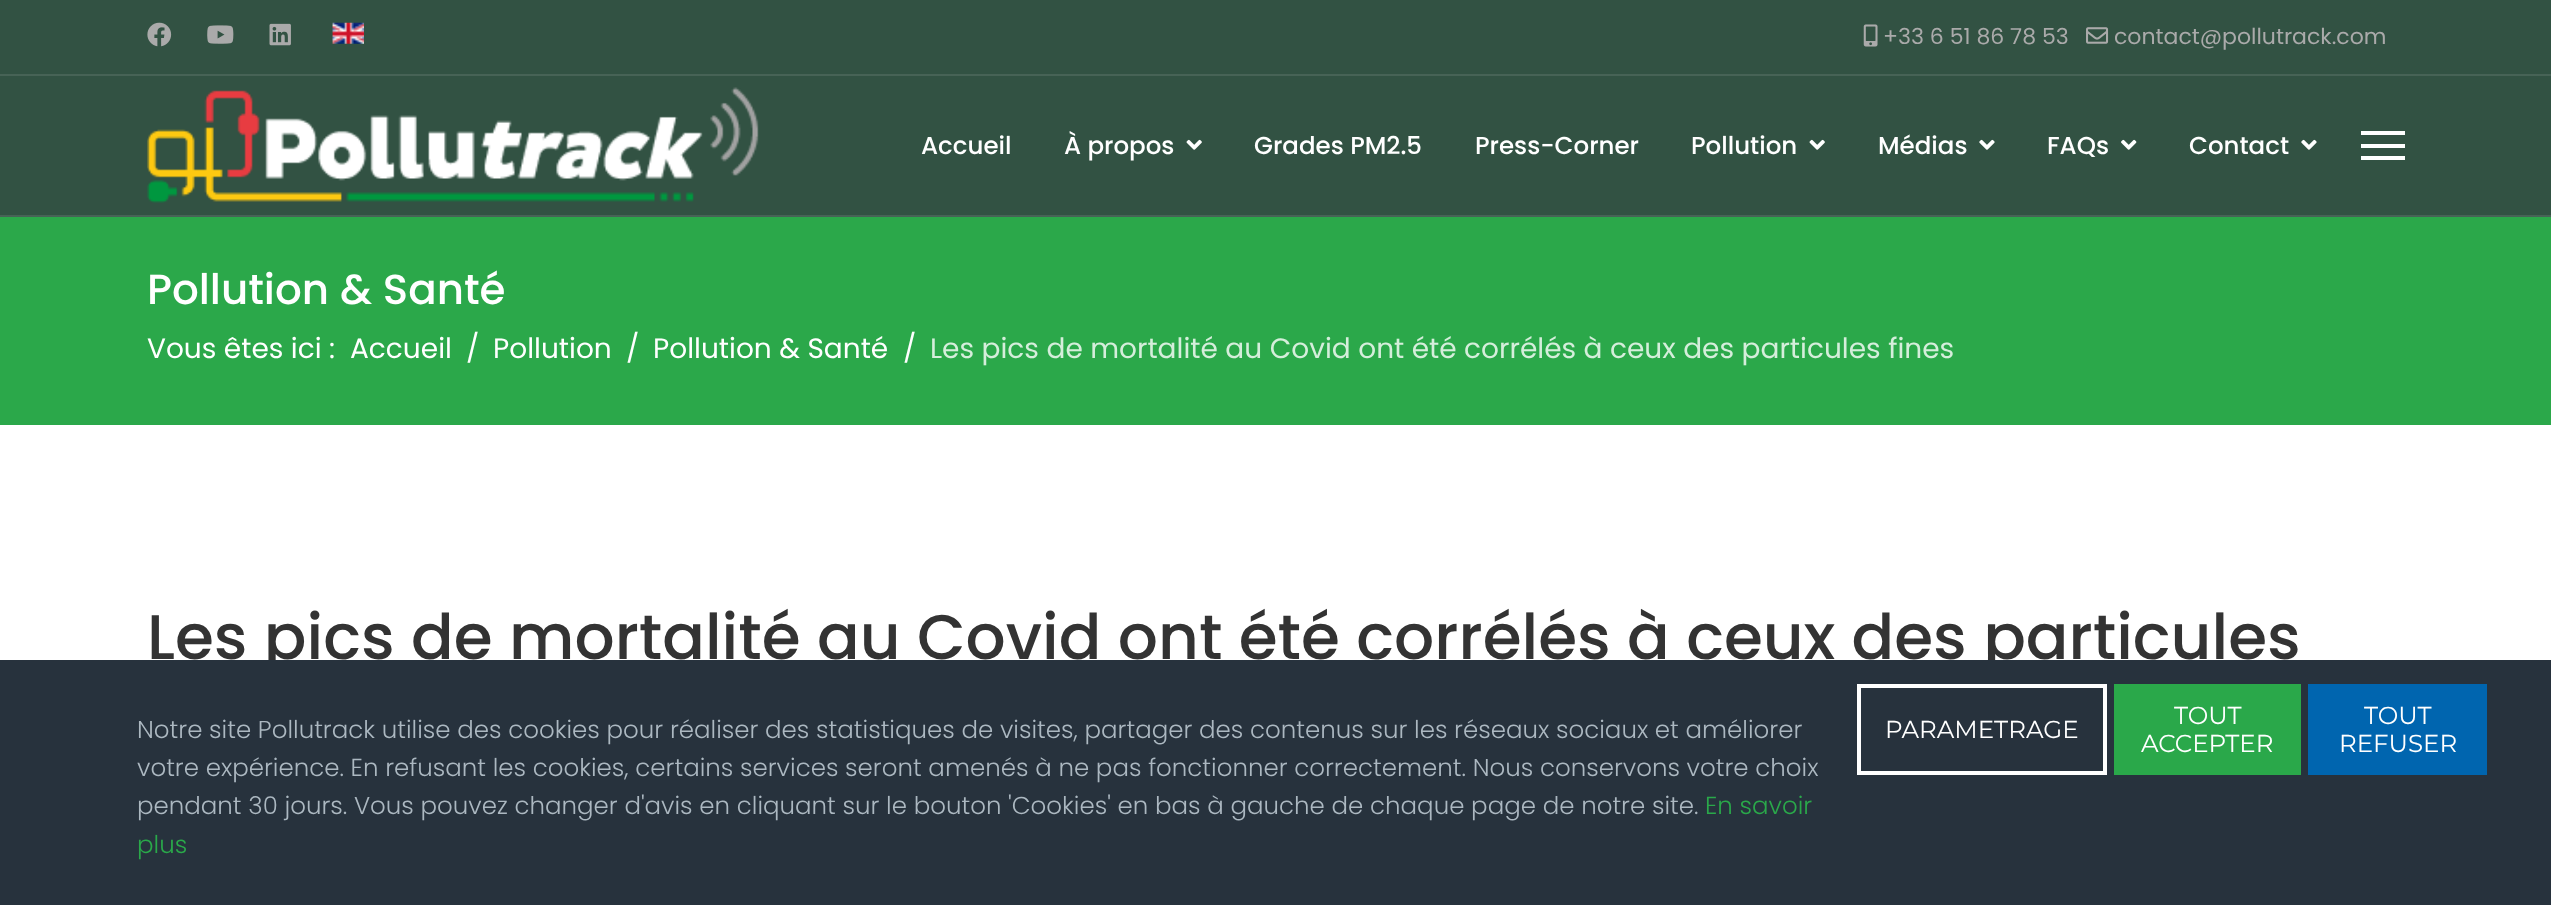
async function draw(canvas) {
	canvas.width = 2551;
	canvas.height = 905;
	const c = canvas.getContext('2d');
	c.miterLimit = 4;
	c.fontKerning = 'normal';
	async function loadImage(src) {
		const img = new Image();
		img.src = src;
		await img.decode();
		return img;
	}

	c.fillStyle = '#fff';
	c.fillRect(0, 0, 2551, 905);
	c.fillStyle = '#325243';
	c.fillRect(0, 0, 2551, 74);
	c.drawImage(await loadImage('img1.png'), 147, 22, 25, 25);
	c.drawImage(await loadImage('img2.png'), 207, 25, 27, 19);
	c.drawImage(await loadImage('img3.png'), 269, 23, 22, 23);
	c.drawImage(await loadImage('img4.png'), 332, 22, 32, 22);
	c.drawImage(await loadImage('img5.png'), 1863, 24, 15, 23);
	c.font = '22px Poppins';
	c.fillStyle = '#aaa';
	c.fillText('+33 6 51 86 78 53', 1883, 44);
	c.drawImage(await loadImage('img6.png'), 2086, 27, 23, 17);
	c.fillText('contact@pollutrack.com', 2114, 44);
	for (const [x, y, w, h, color] of [
		[0, 76, 2551, 139, '#325243'],
		[0, 74, 2551, 2, '#476356'],
		[0, 215, 2551, 2, '#476356'],
	]) {
		c.fillStyle = color;
		c.fillRect(x, y, w, h);
	}
	c.drawImage(await loadImage('img7.png'), 147, 87, 612, 116);
	c.font = '500 24.5px Poppins';
	c.fillStyle = '#fff';
	c.fillText('Accueil', 921, 154);
	c.fillText('À propos', 1064, 154);
	c.drawImage(await loadImage('img8.png'), 1186, 139, 16, 11);
	for (const [text, x, y] of [
		['Grades PM2.5', 1254, 154],
		['Press-Corner', 1475, 154],
		['Pollution', 1691, 154],
	]) {
		c.fillText(text, x, y);
	}
	c.drawImage(await loadImage('img8.png'), 1809, 139, 16, 11);
	c.fillText('Médias', 1878, 154);
	c.drawImage(await loadImage('img9.png'), 1979, 139, 16, 11);
	c.fillText('FAQs', 2047, 154);
	c.drawImage(await loadImage('img10.png'), 2121, 139, 16, 11);
	c.fillText('Contact', 2189, 154);
	c.drawImage(await loadImage('img9.png'), 2301, 139, 16, 11);
	for (const [x, y, w, h, color] of [
		[2361, 131, 44, 4, '#fff'],
		[2361, 144, 44, 4, '#fff'],
		[2361, 156, 44, 4, '#fff'],
		[0, 217, 2551, 208, '#2ba84a'],
	]) {
		c.fillStyle = color;
		c.fillRect(x, y, w, h);
	}
	c.font = '500 42px Poppins';
	c.fillStyle = '#fff';
	c.fillText('Pollution & Santé', 147, 304);
	c.font = '28px Poppins';
	for (const [text, x, y] of [
		['Vous êtes ici :', 147, 358],
		['Accueil', 350, 358],
		['/', 466, 358],
		['Pollution', 493, 358],
		['/', 626, 358],
		['Pollution & Santé', 653, 358],
		['/', 903, 358],
	]) {
		c.fillText(text, x, y);
	}
	c.fillStyle = '#d5eedb';
	c.fillText('Les pics de mortalité au Covid ont été corrélés à ceux des particules fines', 930, 358);
	c.font = '500 63px Poppins';
	c.fillStyle = '#333';
	c.fillText('Les pics de mortalité au Covid ont été corrélés à ceux des particules', 147, 659);
	c.fillStyle = '#27323d';
	c.fillRect(0, 660, 2551, 245);
	c.font = '300 24.5px Poppins';
	c.fillStyle = '#acb8c1';
	for (const [text, x, y] of [
		['Notre site Pollutrack utilise des cookies pour réaliser des statistiques de visites, partager des contenus sur les réseaux sociaux et améliorer', 137, 738],
		['votre expérience. En refusant les cookies, certains services seront amenés à ne pas fonctionner correctement. Nous conservons votre choix', 137, 776],
		['pendant 30 jours. Vous pouvez changer d\'avis en cliquant sur le bouton \'Cookies\' en bas à gauche de chaque page de notre site.', 137, 814],
	]) {
		c.fillText(text, x, y);
	}
	c.fillStyle = '#2aa84a';
	c.fillText('En savoir', 1705, 814);
	c.fillText('plus', 137, 853);
	c.strokeStyle = '#fff';
	c.lineWidth = 4;
	c.strokeRect(1859, 686, 246, 87);
	c.font = '24.5px Montserrat';
	c.fillStyle = '#fff';
	c.fillText('PARAMETRAGE', 1885, 738);
	c.fillStyle = '#2aa84a';
	c.fillRect(2114, 684, 187, 91);
	c.fillStyle = '#fff';
	c.fillText('TOUT', 2174, 724);
	c.fillText('ACCEPTER', 2141, 752);
	c.fillStyle = '#0065af';
	c.fillRect(2308, 684, 179, 91);
	c.fillStyle = '#fff';
	c.fillText('TOUT', 2364, 724);
	c.fillText('REFUSER', 2339, 752);
}

draw(document.querySelector('canvas'));
